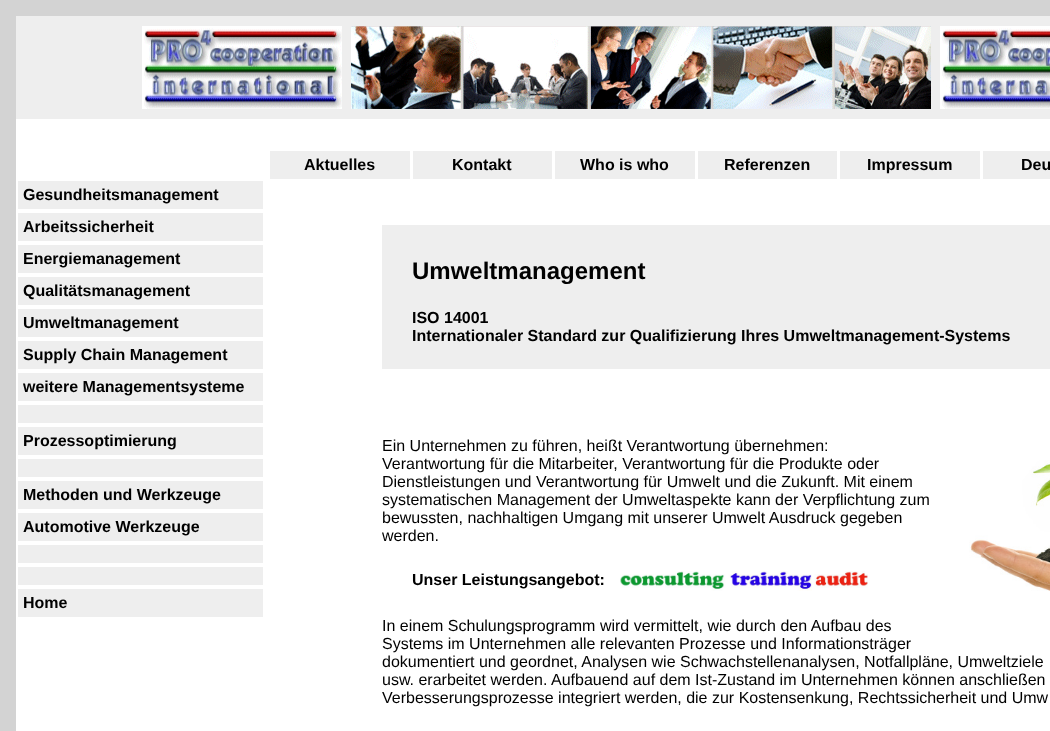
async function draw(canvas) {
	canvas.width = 1050;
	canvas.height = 731;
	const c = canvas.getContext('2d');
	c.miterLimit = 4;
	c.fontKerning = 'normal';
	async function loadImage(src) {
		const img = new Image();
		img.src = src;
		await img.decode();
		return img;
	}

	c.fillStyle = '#d3d3d3';
	c.fillRect(0, 0, 1050, 731);
	c.fillStyle = '#fff';
	c.fillRect(16, 119, 1034, 612);
	c.fillStyle = '#eee';
	c.fillRect(16, 16, 1034, 103);
	c.drawImage(await loadImage('img1.png'), 142, 26, 200, 83);
	c.drawImage(await loadImage('img2.png'), 351, 26, 580, 83);
	c.drawImage(await loadImage('img3.png'), 940, 26, 110, 83);
	c.fillRect(270, 151, 780, 28);
	c.font = 'bold 16px Liberation Sans';
	c.fillStyle = '#000';
	c.fillText('Aktuelles', 304, 170);
	c.fillStyle = '#fff';
	c.fillRect(410, 150, 3, 31);
	c.fillStyle = '#000';
	c.fillText('Kontakt', 452, 170);
	c.fillStyle = '#fff';
	c.fillRect(552, 150, 3, 31);
	c.fillStyle = '#000';
	c.fillText('Who is who', 580, 170);
	c.fillStyle = '#fff';
	c.fillRect(695, 150, 3, 31);
	c.fillStyle = '#000';
	c.fillText('Referenzen', 724, 170);
	c.fillStyle = '#fff';
	c.fillRect(837, 150, 3, 31);
	c.fillStyle = '#000';
	c.fillText('Impressum', 867, 170);
	c.fillStyle = '#fff';
	c.fillRect(980, 150, 3, 31);
	c.fillStyle = '#000';
	c.fillText('Deu', 1021, 170);
	c.fillStyle = '#eee';
	c.fillRect(18, 181, 245, 436);
	c.strokeStyle = '#fff';
	c.lineWidth = 2;
	c.strokeRect(17, 180, 247, 30);
	c.fillStyle = '#000';
	c.fillText('Gesundheitsmanagement', 23, 200);
	c.strokeRect(17, 212, 247, 30);
	c.fillText('Arbeitssicherheit', 23, 232);
	c.strokeRect(17, 244, 247, 30);
	c.fillText('Energiemanagement', 23, 264);
	c.strokeRect(17, 276, 247, 30);
	c.fillText('Qualitätsmanagement', 23, 296);
	c.strokeRect(17, 308, 247, 30);
	c.fillText('Umweltmanagement', 23, 328);
	c.strokeRect(17, 340, 247, 30);
	c.fillText('Supply Chain Management', 23, 360);
	c.strokeRect(17, 372, 247, 30);
	c.fillText('weitere Managementsysteme', 23, 392);
	c.strokeRect(17, 404, 247, 20);
	c.strokeRect(17, 426, 247, 30);
	c.fillText('Prozessoptimierung', 23, 446);
	c.strokeRect(17, 458, 247, 20);
	c.strokeRect(17, 480, 247, 30);
	c.fillText('Methoden und Werkzeuge', 23, 500);
	c.strokeRect(17, 512, 247, 30);
	c.fillText('Automotive Werkzeuge', 23, 532);
	c.strokeRect(17, 544, 247, 20);
	c.strokeRect(17, 566, 247, 20);
	c.strokeRect(17, 588, 247, 30);
	c.fillText('Home', 23, 608);
	c.fillStyle = '#eee';
	c.fillRect(382, 225, 668, 144);
	c.font = 'bold 24px Liberation Sans';
	c.fillStyle = '#000';
	c.fillText('Umweltmanagement', 412, 279);
	c.font = 'bold 16px Liberation Sans';
	c.fillText('ISO 14001', 412, 323);
	c.fillText('Internationaler Standard zur Qualifizierung Ihres Umweltmanagement-Systems', 412, 341);
	c.font = '16px Liberation Sans';
	for (const [text, x, y] of [
		['Ein Unternehmen zu führen, heißt Verantwortung übernehmen:', 382, 451],
		['Verantwortung für die Mitarbeiter, Verantwortung für die Produkte oder', 382, 469],
		['Dienstleistungen und Verantwortung für Umwelt und die Zukunft. Mit einem', 382, 487],
		['systematischen Management der Umweltaspekte kann der Verpflichtung zum', 382, 505],
		['bewussten, nachhaltigen Umgang mit unserer Umwelt Ausdruck gegeben', 382, 523],
		['werden.', 382, 541],
	]) {
		c.fillText(text, x, y);
	}
	c.font = 'bold 16px Liberation Sans';
	c.fillText('Unser Leistungsangebot:', 412, 585);
	c.drawImage(await loadImage('img4.png'), 620, 571, 248, 20);
	c.font = '16px Liberation Sans';
	for (const [text, x, y] of [
		['In einem Schulungsprogramm wird vermittelt, wie durch den Aufbau des', 382, 631],
		['Systems im Unternehmen alle relevanten Prozesse und Informationsträger', 382, 649],
		['dokumentiert und geordnet, Analysen wie Schwachstellenanalysen, Notfallpläne, Umweltziele', 382, 667],
		['usw. erarbeitet werden. Aufbauend auf dem Ist-Zustand im Unternehmen können anschließen', 382, 685],
		['Verbesserungsprozesse integriert werden, die zur Kostensenkung, Rechtssicherheit und Umw', 382, 703],
	]) {
		c.fillText(text, x, y);
	}
	c.drawImage(await loadImage('img5.png'), 969, 460, 81, 131);
}

draw(document.querySelector('canvas'));
